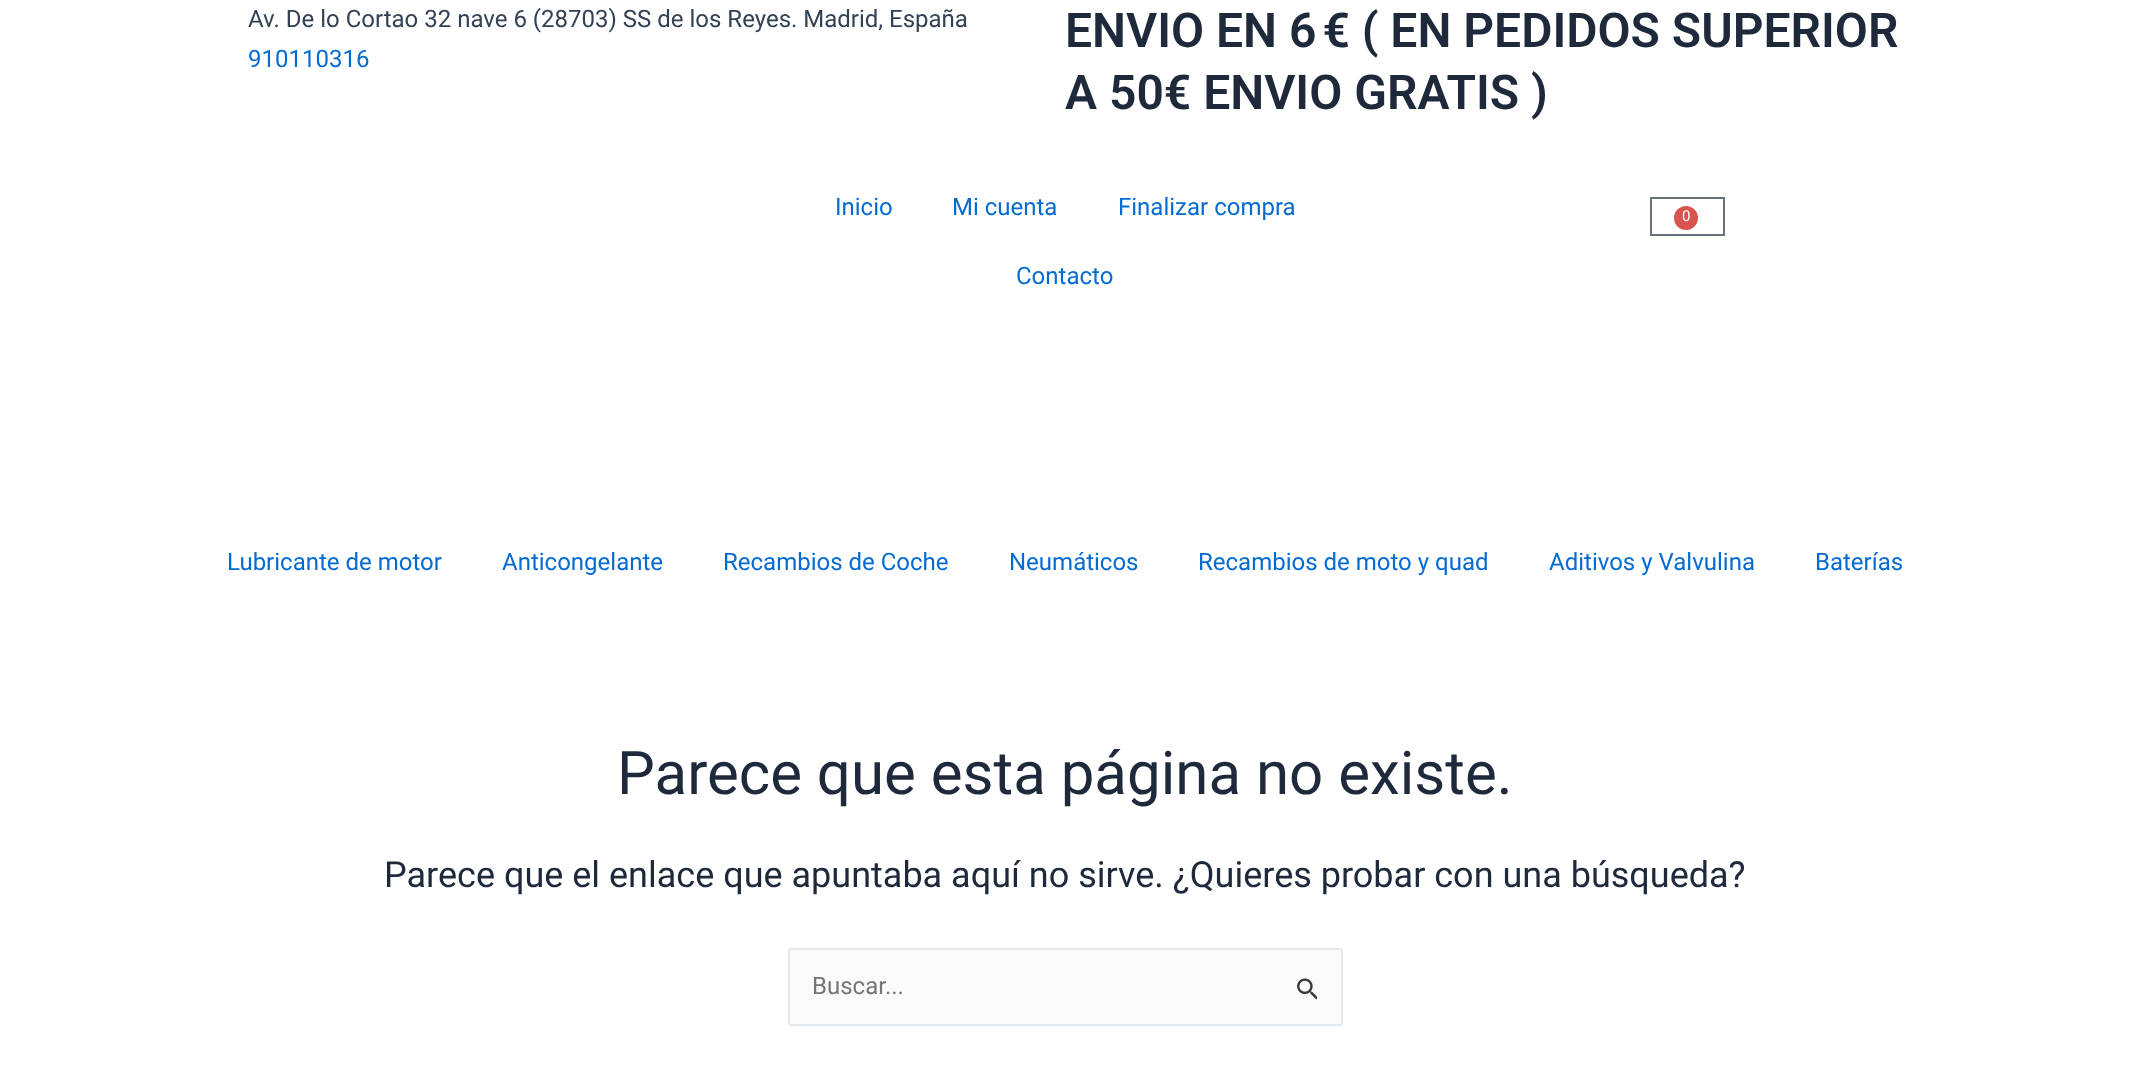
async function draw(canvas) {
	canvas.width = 2130;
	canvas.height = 1082;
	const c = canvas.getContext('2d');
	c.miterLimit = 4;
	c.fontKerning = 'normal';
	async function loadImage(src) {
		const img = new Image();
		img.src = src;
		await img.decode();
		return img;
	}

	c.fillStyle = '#fff';
	c.fillRect(0, 0, 2130, 1082);
	c.font = '24px Roboto';
	c.fillStyle = '#334155';
	c.fillText('Av. De lo Cortao 32 nave 6 (28703) SS de los Reyes. Madrid, España', 248, 27);
	c.fillStyle = '#046bd2';
	c.fillText('910110316', 248, 67);
	c.font = '600 48px Roboto';
	c.fillStyle = '#1e293b';
	c.fillText('ENVIO EN 6 € ( EN PEDIDOS SUPERIOR', 1065, 47);
	c.fillText('A 50€ ENVIO GRATIS )', 1065, 109);
	c.font = '24px Roboto';
	c.fillStyle = '#046bd2';
	for (const [text, x, y] of [
		['Inicio', 835, 215],
		['Mi cuenta', 952, 215],
		['Finalizar compra', 1118, 215],
		['Contacto', 1016, 284],
	]) {
		c.fillText(text, x, y);
	}
	c.strokeStyle = '#69727d';
	c.lineWidth = 2;
	c.strokeRect(1651, 198, 73, 37);
	c.fillStyle = '#d9534f';
	c.beginPath();
	c.arc(1686, 218, 12, 0, 2 * Math.PI);
	c.fill();
	c.font = '15px Roboto';
	c.fillStyle = '#fff';
	c.fillText('0', 1682, 221);
	c.font = '24px Roboto';
	c.fillStyle = '#046bd2';
	for (const [text, x, y] of [
		['Lubricante de motor', 227, 570],
		['Anticongelante', 502, 570],
		['Recambios de Coche', 723, 570],
		['Neumáticos', 1009, 570],
		['Recambios de moto y quad', 1198, 570],
		['Aditivos y Valvulina', 1549, 570],
		['Baterías', 1815, 570],
	]) {
		c.fillText(text, x, y);
	}
	c.font = '60px Roboto';
	c.fillStyle = '#1e293b';
	c.fillText('Parece que esta página no existe.', 617, 794);
	c.font = '36px Roboto';
	c.fillText('Parece que el enlace que apuntaba aquí no sirve. ¿Quieres probar con una búsqueda?', 384, 887);
	c.fillStyle = '#fafafa';
	c.beginPath();
	c.roundRect(789, 949, 553, 76, 2);
	c.fill();
	c.strokeStyle = '#e2e8f0';
	c.stroke();
	c.font = '24px Roboto';
	c.fillStyle = '#757575';
	c.fillText('Buscar...', 812, 994);
	c.drawImage(await loadImage('img1.png'), 1297, 978, 20, 22);
}

draw(document.querySelector('canvas'));
